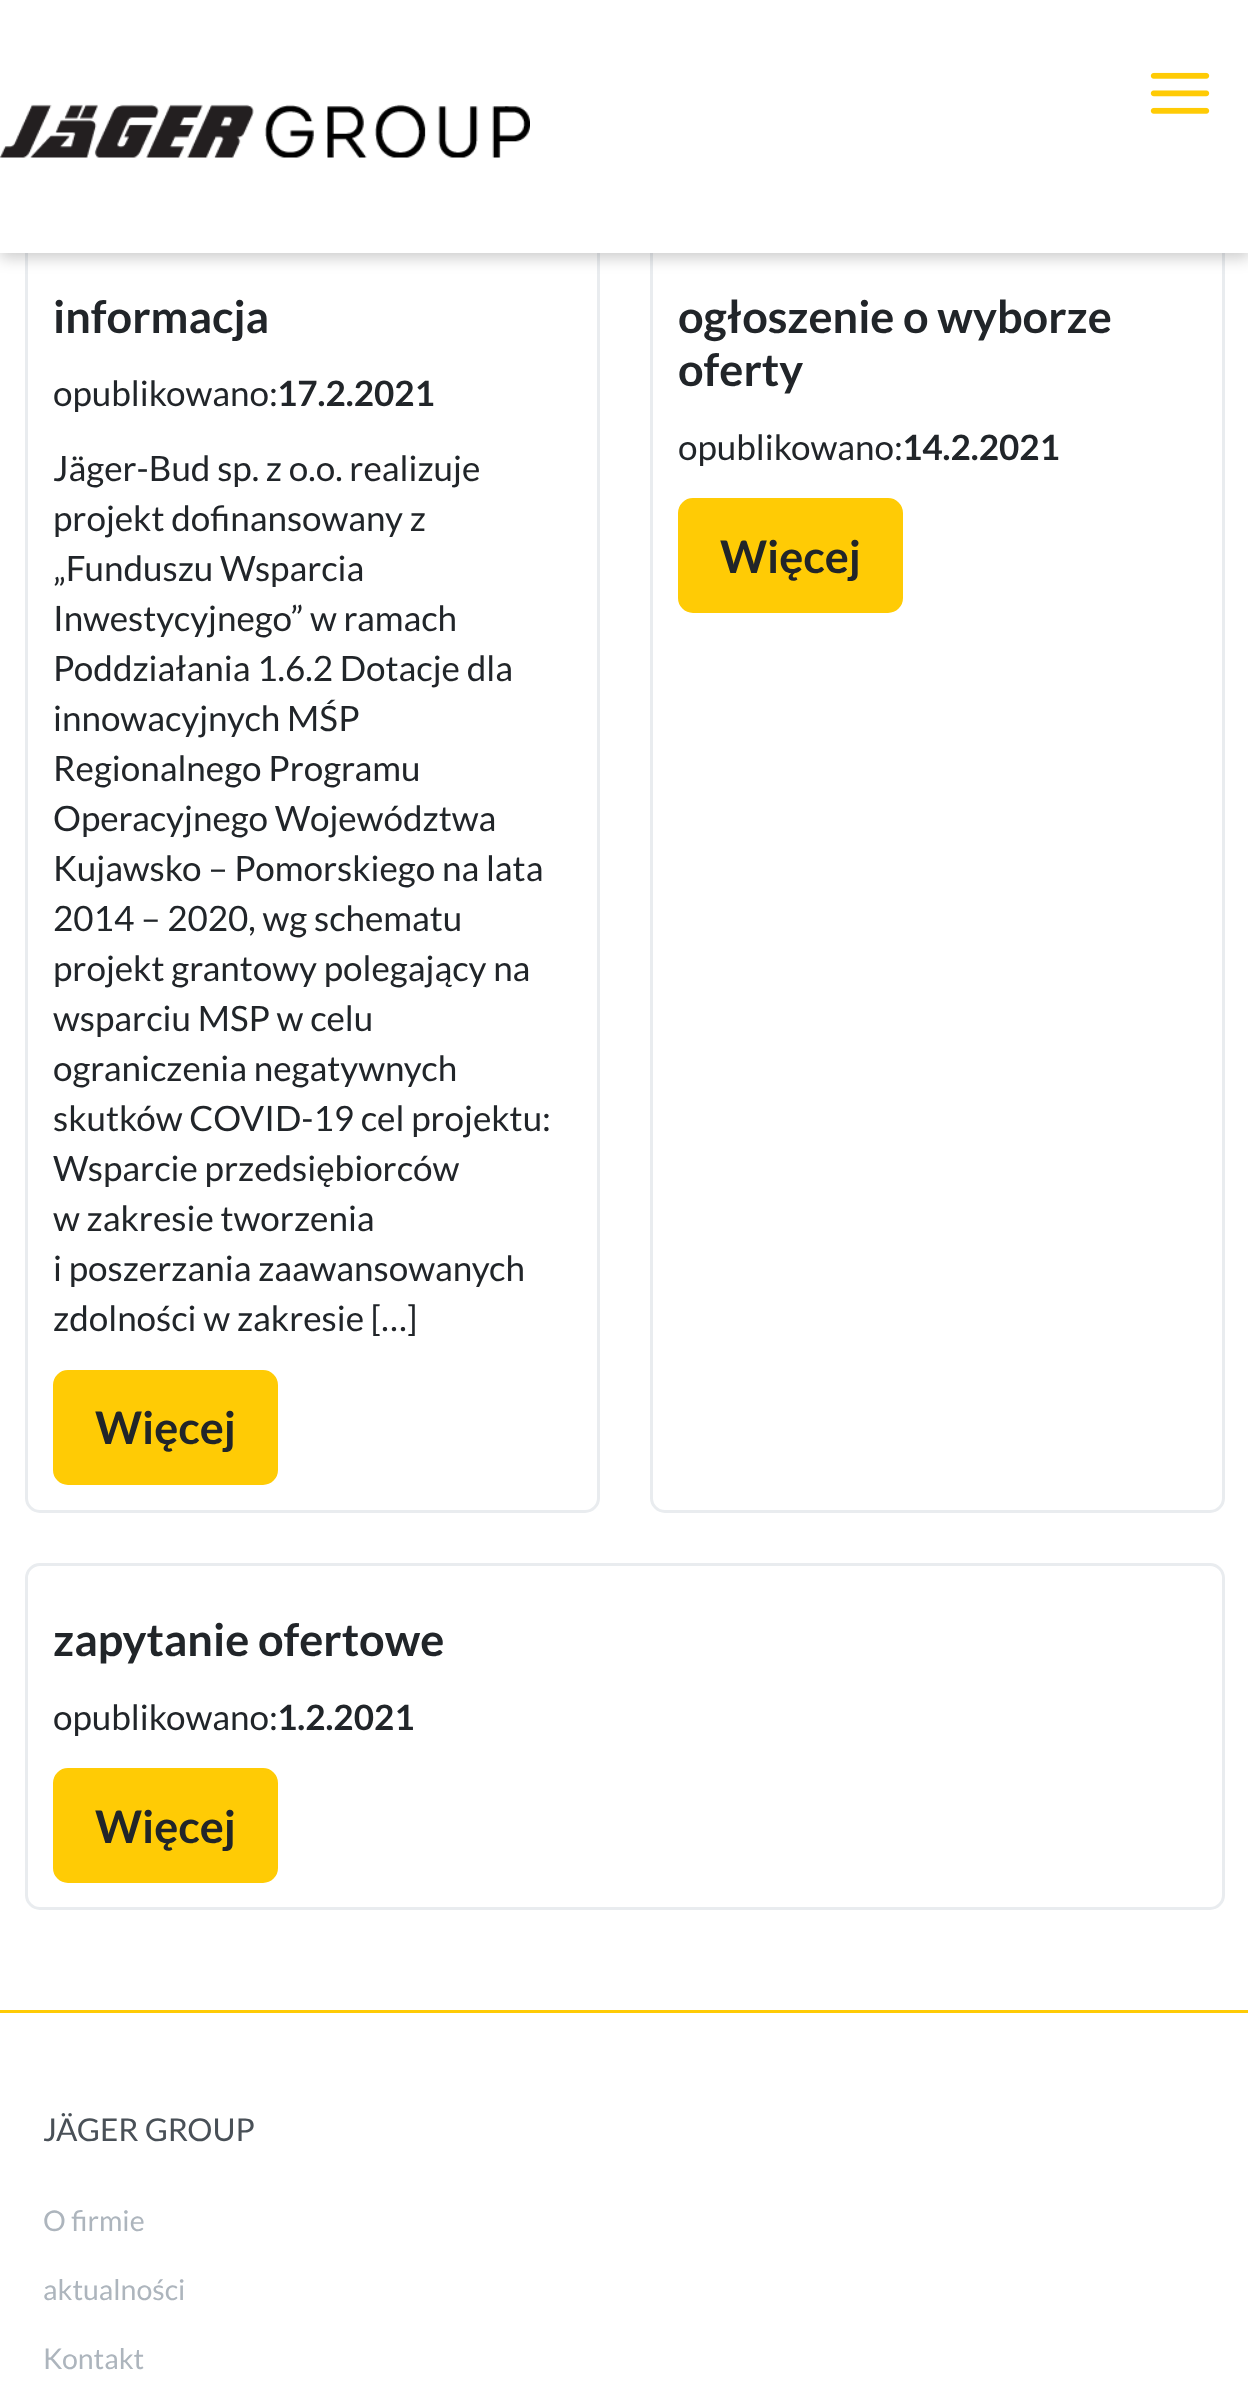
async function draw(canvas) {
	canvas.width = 1248;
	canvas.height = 2388;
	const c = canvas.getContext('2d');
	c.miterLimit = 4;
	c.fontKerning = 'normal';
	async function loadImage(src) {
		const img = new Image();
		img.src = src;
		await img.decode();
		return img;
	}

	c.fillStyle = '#fff';
	c.fillRect(0, 0, 1248, 2388);
	c.beginPath();
	c.roundRect(26.5, 239.5, 572, 1272, 13.5);
	c.strokeStyle = '#e9ecef';
	c.lineWidth = 3;
	c.stroke();
	c.beginPath();
	c.roundRect(651.5, 239.5, 572, 1272, 13.5);
	c.stroke();
	c.fillStyle = '#00000033';
	c.filter = 'blur(7.5px)';
	c.beginPath();
	c.rect(0, 5, 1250, 253);
	c.fill();
	c.filter = 'none';
	c.fillStyle = '#fff';
	c.fillRect(0, 0, 1248, 253);
	c.drawImage(await loadImage('img1.png'), 1150, 72, 60, 42);
	c.drawImage(await loadImage('img2.png'), 0, 104, 530, 54);
	c.font = 'bold 45px Lato';
	c.fillStyle = '#212529';
	c.fillText('informacja', 53, 333);
	c.font = '35px Lato';
	c.fillText('opublikowano:', 53, 406);
	c.font = 'bold 35px Lato';
	c.fillText('17.2.2021', 277, 406);
	c.font = '35px Lato';
	for (const [text, x, y] of [
		['Jäger-Bud sp. z o.o. realizuje', 53, 481],
		['projekt dofinansowany z', 53, 531],
		['„Funduszu Wsparcia', 53, 581],
		['Inwestycyjnego” w ramach', 53, 631],
		['Poddziałania 1.6.2 Dotacje dla', 53, 681],
		['innowacyjnych MŚP', 53, 731],
		['Regionalnego Programu', 53, 781],
		['Operacyjnego Województwa', 53, 831],
		['Kujawsko – Pomorskiego na lata', 53, 881],
		['2014 – 2020, wg schematu', 53, 931],
		['projekt grantowy polegający na', 53, 981],
		['wsparciu MSP w celu', 53, 1031],
		['ograniczenia negatywnych', 53, 1081],
		['skutków COVID-19 cel projektu:', 53, 1131],
		['Wsparcie przedsiębiorców', 53, 1181],
		['w zakresie tworzenia', 53, 1231],
		['i poszerzania zaawansowanych', 53, 1281],
		['zdolności w zakresie […]', 53, 1331],
	]) {
		c.fillText(text, x, y);
	}
	c.fillStyle = '#ffcb05';
	c.beginPath();
	c.roundRect(54.5, 1371.5, 222, 112, 13.5);
	c.fill();
	c.strokeStyle = '#ffcb05';
	c.stroke();
	c.font = 'bold 45px Lato';
	c.fillStyle = '#212529';
	for (const [text, x, y] of [
		['Więcej', 95, 1444],
		['ogłoszenie o wyborze', 678, 333],
		['oferty', 678, 386],
	]) {
		c.fillText(text, x, y);
	}
	c.font = '35px Lato';
	c.fillText('opublikowano:', 678, 460);
	c.font = 'bold 35px Lato';
	c.fillText('14.2.2021', 902, 460);
	c.fillStyle = '#ffcb05';
	c.beginPath();
	c.roundRect(679.5, 499.5, 222, 112, 13.5);
	c.fill();
	c.stroke();
	c.font = 'bold 45px Lato';
	c.fillStyle = '#212529';
	c.fillText('Więcej', 720, 573);
	c.beginPath();
	c.roundRect(26.5, 1564.5, 1197, 344, 13.5);
	c.strokeStyle = '#e9ecef';
	c.stroke();
	c.fillText('zapytanie ofertowe', 53, 1656);
	c.font = '35px Lato';
	c.fillText('opublikowano:', 53, 1730);
	c.font = 'bold 35px Lato';
	c.fillText('1.2.2021', 277, 1730);
	c.fillStyle = '#ffcb05';
	c.beginPath();
	c.roundRect(54.5, 1769.5, 222, 112, 13.5);
	c.fill();
	c.strokeStyle = '#ffcb05';
	c.stroke();
	c.font = 'bold 45px Lato';
	c.fillStyle = '#212529';
	c.fillText('Więcej', 95, 1843);
	c.fillStyle = '#ffcb05';
	c.fillRect(0, 2010, 1248, 3);
	c.font = '31.5px Lato';
	c.fillStyle = '#495057';
	c.fillText('JÄGER GROUP', 43, 2141);
	c.font = '28.5px Lato';
	c.fillStyle = '#adb5bd';
	for (const [text, x, y] of [
		['O firmie', 43, 2231],
		['aktualności', 43, 2300],
		['Kontakt', 43, 2369],
	]) {
		c.fillText(text, x, y);
	}
}

draw(document.querySelector('canvas'));
